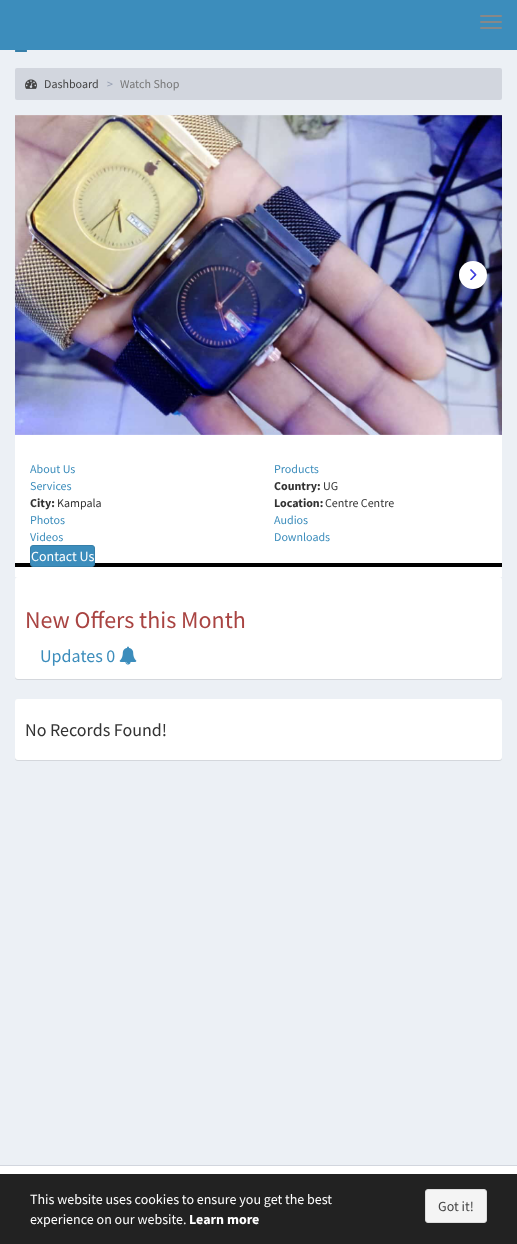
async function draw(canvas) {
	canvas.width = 517;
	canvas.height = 1244;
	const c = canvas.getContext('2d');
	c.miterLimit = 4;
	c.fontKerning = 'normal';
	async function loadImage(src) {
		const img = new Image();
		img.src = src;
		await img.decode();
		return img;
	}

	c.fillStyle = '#fff';
	c.fillRect(0, 0, 517, 1244);
	c.fillStyle = '#3c8dbc';
	c.fillRect(0, 0, 517, 50);
	c.fillStyle = '#888';
	c.beginPath();
	c.roundRect(480, 15, 22, 2, 1);
	c.fill();
	c.beginPath();
	c.roundRect(480, 21, 22, 2, 1);
	c.fill();
	c.beginPath();
	c.roundRect(480, 27, 22, 2, 1);
	c.fill();
	c.fillStyle = '#ecf0f5';
	c.fillRect(0, 50, 517, 1115);
	c.drawImage(await loadImage('img1.png'), 15, 50, 12, 2);
	c.fillStyle = '#d2d6de';
	c.beginPath();
	c.roundRect(15, 68, 487, 32, 2);
	c.fill();
	c.drawImage(await loadImage('img2.png'), 25, 79, 12, 10);
	c.font = '12px Source Sans Pro';
	c.fillStyle = '#444';
	c.fillText('Dashboard', 44, 88);
	c.fillStyle = '#97a0b3';
	c.fillText('>', 107, 88);
	c.fillStyle = '#777';
	c.fillText('Watch Shop', 120, 88);
	c.drawImage(await loadImage('img3.png'), 15, 115, 487, 320);
	c.fillStyle = '#fff';
	c.beginPath();
	c.arc(473, 275, 14, 0, 2 * Math.PI);
	c.fill();
	c.drawImage(await loadImage('img4.png'), 470, 269, 7, 11);
	c.fillRect(15, 435, 487, 142);
	c.fillStyle = '#000';
	c.fillRect(15, 563, 487, 4);
	c.fillStyle = '#3c8dbc';
	for (const [text, x, y] of [
		['About Us', 30, 473],
		['Products', 274, 473],
		['Services', 30, 490],
	]) {
		c.fillText(text, x, y);
	}
	c.font = 'bold 12px Source Sans Pro';
	c.fillStyle = '#333';
	c.fillText('Country:', 274, 490);
	c.font = '12px Source Sans Pro';
	c.fillText('UG', 323, 490);
	c.font = 'bold 12px Source Sans Pro';
	c.fillText('City:', 30, 507);
	c.font = '12px Source Sans Pro';
	c.fillText('Kampala', 57, 507);
	c.font = 'bold 12px Source Sans Pro';
	c.fillText('Location:', 274, 507);
	c.font = '12px Source Sans Pro';
	c.fillText('Centre Centre', 325, 507);
	c.fillStyle = '#3c8dbc';
	for (const [text, x, y] of [
		['Photos', 30, 524],
		['Audios', 274, 524],
		['Videos', 30, 541],
		['Downloads', 274, 541],
	]) {
		c.fillText(text, x, y);
	}
	c.beginPath();
	c.roundRect(30.5, 545.5, 64, 21, 2.5);
	c.fill();
	c.strokeStyle = '#367fa9';
	c.stroke();
	c.font = '14px Source Sans Pro';
	c.fillStyle = '#fff';
	c.fillText('Contact Us', 31, 561);
	c.fillStyle = '#0000001a';
	c.filter = 'blur(0.5px)';
	c.beginPath();
	c.roundRect(15, 578, 487, 102, 3);
	c.fill();
	c.filter = 'none';
	c.fillStyle = '#fff';
	c.beginPath();
	c.roundRect(15, 577, 487, 102, 3);
	c.fill();
	c.font = '24px Source Sans Pro';
	c.fillStyle = '#a94442';
	c.fillText('New Offers this Month', 25, 628);
	c.font = '18px Source Sans Pro';
	c.fillStyle = '#3c8dbc';
	c.fillText('Updates 0', 40, 662);
	c.drawImage(await loadImage('img5.png'), 119, 646, 18, 19);
	c.fillStyle = '#0000001a';
	c.filter = 'blur(0.5px)';
	c.beginPath();
	c.roundRect(15, 700, 487, 61, 3);
	c.fill();
	c.filter = 'none';
	c.fillStyle = '#fff';
	c.beginPath();
	c.roundRect(15, 699, 487, 61, 3);
	c.fill();
	c.fillStyle = '#333';
	c.fillText('No Records Found!', 25, 736);
	c.fillStyle = '#d2d6de';
	c.fillRect(0, 1165, 517, 1);
	c.fillStyle = '#222';
	c.fillRect(0, 1174, 517, 70);
	c.font = '14px Source Sans Pro';
	c.fillStyle = '#fff';
	c.fillText('This website uses cookies to ensure you get the best', 30, 1204);
	c.fillText('experience on our website.', 30, 1224);
	c.font = 'bold 14px Source Sans Pro';
	c.fillText('Learn more', 189, 1224);
	c.fillStyle = '#f4f4f4';
	c.beginPath();
	c.roundRect(425.5, 1189.5, 61, 33, 2.5);
	c.fill();
	c.strokeStyle = '#ddd';
	c.stroke();
	c.font = '14px Source Sans Pro';
	c.fillStyle = '#444';
	c.fillText('Got it!', 438, 1211);
}

draw(document.querySelector('canvas'));
